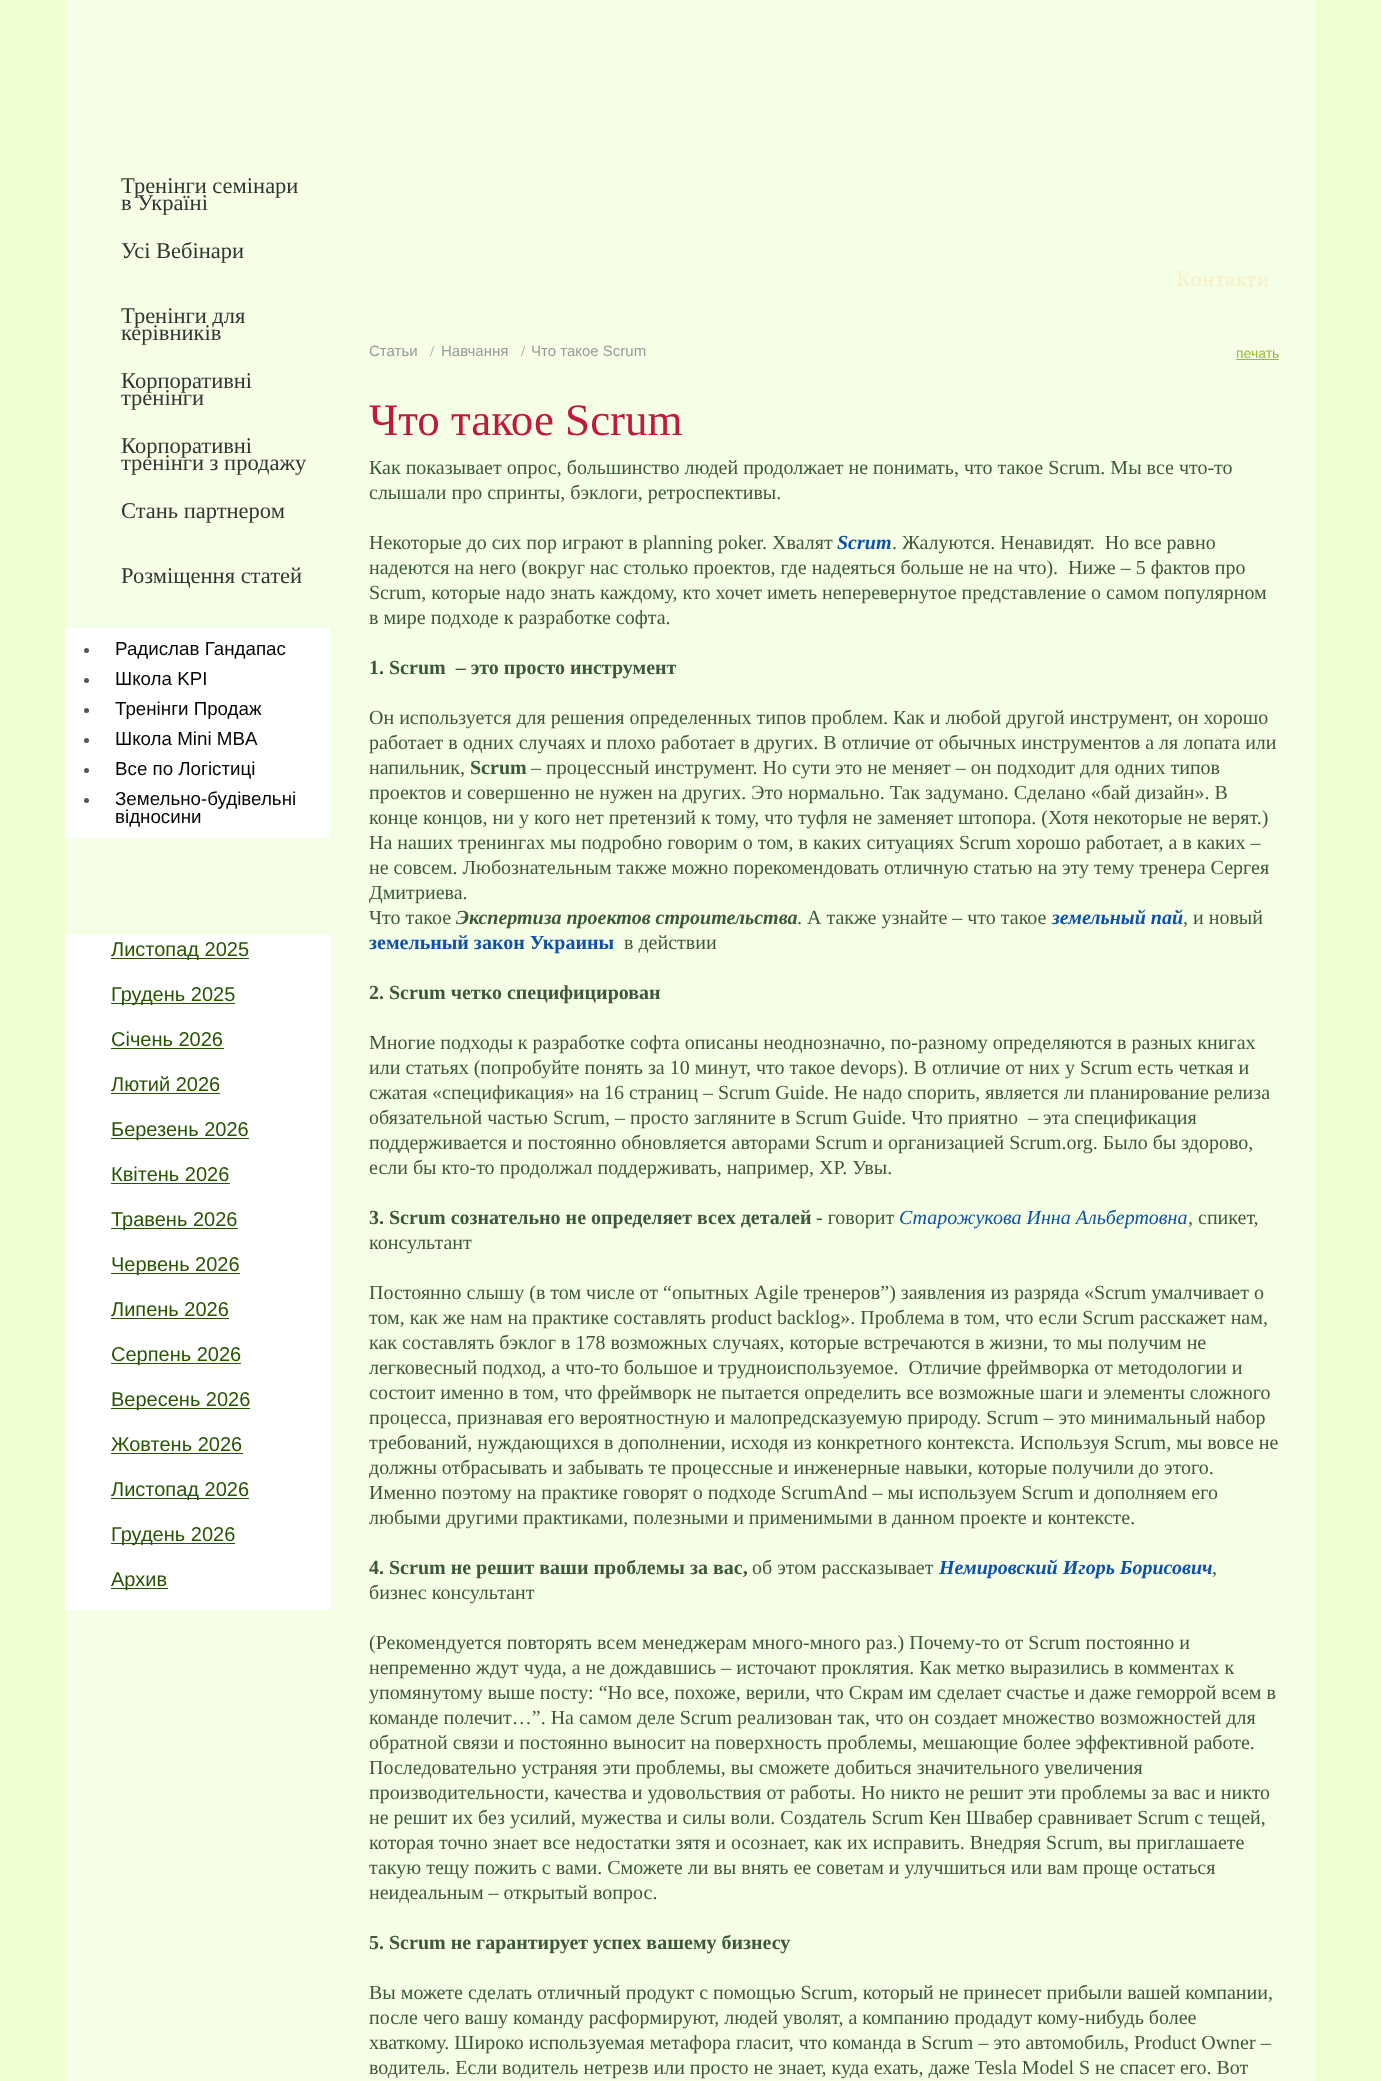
async function draw(canvas) {
	canvas.width = 1381;
	canvas.height = 2081;
	const c = canvas.getContext('2d');
	c.miterLimit = 4;
	c.fontKerning = 'normal';
	async function loadImage(src) {
		const img = new Image();
		img.src = src;
		await img.decode();
		return img;
	}

	c.fillStyle = '#edffcf';
	c.fillRect(0, 0, 1381, 2081);
	c.fillStyle = '#f5ffe5';
	c.fillRect(65, 0, 1251, 2081);
	c.font = '22.5px Liberation Serif';
	c.fillStyle = '#333';
	for (const [text, x, y] of [
		['Тренінги семінари', 121, 193],
		['в Україні', 121, 210],
		['Усі Вебінари', 121, 258],
		['Тренінги для', 121, 323],
		['керівників', 121, 340],
		['Корпоративні', 121, 388],
		['тренінги', 121, 405],
		['Корпоративні', 121, 453],
		['тренінги з продажу', 121, 470],
		['Стань партнером', 121, 518],
		['Розміщення статей', 121, 583],
	]) {
		c.fillText(text, x, y);
	}
	c.fillStyle = '#fff';
	c.fillRect(65, 628, 265, 210);
	c.fillStyle = '#545454';
	c.beginPath();
	c.arc(86.5, 650.5, 2.5, 0, 2 * Math.PI);
	c.fill();
	c.font = '18.75px Liberation Sans';
	c.fillStyle = '#070506';
	c.fillText('Радислав Гандапас', 115, 655);
	c.fillStyle = '#545454';
	c.beginPath();
	c.arc(86.5, 680.5, 2.5, 0, 2 * Math.PI);
	c.fill();
	c.fillStyle = '#070506';
	c.fillText('Школа KPI', 115, 685);
	c.fillStyle = '#545454';
	c.beginPath();
	c.arc(86.5, 710.5, 2.5, 0, 2 * Math.PI);
	c.fill();
	c.fillStyle = '#070506';
	c.fillText('Тренінги Продаж', 115, 715);
	c.fillStyle = '#545454';
	c.beginPath();
	c.arc(86.5, 740.5, 2.5, 0, 2 * Math.PI);
	c.fill();
	c.fillStyle = '#070506';
	c.fillText('Школа Mini МBA', 115, 745);
	c.fillStyle = '#545454';
	c.beginPath();
	c.arc(86.5, 770.5, 2.5, 0, 2 * Math.PI);
	c.fill();
	c.fillStyle = '#070506';
	c.fillText('Все по Логістиці', 115, 775);
	c.fillStyle = '#545454';
	c.beginPath();
	c.arc(86.5, 800.5, 2.5, 0, 2 * Math.PI);
	c.fill();
	c.fillStyle = '#070506';
	c.fillText('Земельно-будівельні', 115, 805);
	c.fillText('відносини', 115, 823);
	c.fillStyle = '#fff';
	c.fillRect(65, 935, 266, 675);
	c.fillStyle = '#265400';
	c.fillRect(111, 958, 138, 1);
	c.font = '20px Liberation Sans';
	c.fillText('Листопад 2025', 111, 956);
	c.fillRect(111, 1003, 124, 1);
	c.fillText('Грудень 2025', 111, 1001);
	c.fillText('Січень 2026', 111, 1046);
	c.fillRect(111, 1048, 113, 1);
	c.fillText('Лютий 2026', 111, 1091);
	c.fillRect(111, 1093, 109, 1);
	c.fillRect(111, 1138, 138, 1);
	c.fillText('Березень 2026', 111, 1136);
	c.fillText('Квітень 2026', 111, 1181);
	c.fillRect(111, 1183, 119, 1);
	c.fillRect(111, 1228, 127, 1);
	c.fillText('Травень 2026', 111, 1226);
	c.fillRect(111, 1273, 129, 1);
	c.fillText('Червень 2026', 111, 1271);
	c.fillText('Липень 2026', 111, 1316);
	c.fillRect(111, 1318, 118, 1);
	c.fillRect(111, 1363, 130, 1);
	c.fillText('Серпень 2026', 111, 1361);
	c.fillRect(111, 1408, 139, 1);
	c.fillText('Вересень 2026', 111, 1406);
	c.fillText('Жовтень 2026', 111, 1451);
	c.fillRect(111, 1453, 132, 1);
	c.fillRect(111, 1498, 138, 1);
	c.fillText('Листопад 2026', 111, 1496);
	c.fillRect(111, 1543, 124, 1);
	c.fillText('Грудень 2026', 111, 1541);
	c.fillRect(111, 1588, 57, 1);
	c.fillText('Архив', 111, 1586);
	c.drawImage(await loadImage('img1.png'), 1176, 271, 93, 16);
	c.font = '15px Liberation Sans';
	c.fillStyle = '#999';
	c.fillText('Статьи', 369, 356);
	c.font = '15px Liberation Serif';
	c.fillText('/', 430, 356);
	c.font = '15px Liberation Sans';
	c.fillText('Навчання', 441, 356);
	c.font = '15px Liberation Serif';
	c.fillText('/', 521, 356);
	c.font = '15px Liberation Sans';
	c.fillText('Что такое Scrum', 531, 356);
	c.font = '14px Liberation Sans';
	c.fillStyle = '#9bb941';
	c.fillText('печать', 1236, 358);
	c.fillRect(1236, 359, 43, 1);
	c.font = '45px Liberation Serif';
	c.fillStyle = '#c4173e';
	c.fillText('Что такое Scrum', 369, 435);
	c.font = '20px Liberation Serif';
	c.fillStyle = '#3d573d';
	for (const [text, x, y] of [
		['Как показывает опрос, большинство людей продолжает не понимать, что такое Scrum. Мы все что-то', 369, 474],
		['слышали про спринты, бэклоги, ретроспективы.', 369, 499],
		['Некоторые до сих пор играют в planning poker. Хвалят', 369, 549],
	]) {
		c.fillText(text, x, y);
	}
	c.font = 'italic bold 20px Liberation Serif';
	c.fillStyle = '#0d50a7';
	c.fillText('Scrum', 837, 549);
	c.font = '20px Liberation Serif';
	c.fillStyle = '#3d573d';
	for (const [text, x, y] of [
		['. Жалуются. Ненавидят.  Но все равно', 892, 549],
		['надеются на него (вокруг нас столько проектов, где надеяться больше не на что).  Ниже – 5 фактов про', 369, 574],
		['Scrum, которые надо знать каждому, кто хочет иметь неперевернутое представление о самом популярном', 369, 599],
		['в мире подходе к разработке софта.', 369, 624],
	]) {
		c.fillText(text, x, y);
	}
	c.font = 'bold 20px Liberation Serif';
	c.fillText('1. Scrum  – это просто инструмент', 369, 674);
	c.font = '20px Liberation Serif';
	for (const [text, x, y] of [
		['Он используется для решения определенных типов проблем. Как и любой другой инструмент, он хорошо', 369, 724],
		['работает в одних случаях и плохо работает в других. В отличие от обычных инструментов а ля лопата или', 369, 749],
		['напильник,', 369, 774],
	]) {
		c.fillText(text, x, y);
	}
	c.font = 'bold 20px Liberation Serif';
	c.fillText('Scrum', 470, 774);
	c.font = '20px Liberation Serif';
	for (const [text, x, y] of [
		['– процессный инструмент. Но сути это не меняет – он подходит для одних типов', 531, 774],
		['проектов и совершенно не нужен на других. Это нормально. Так задумано. Сделано «бай дизайн». В', 369, 799],
		['конце концов, ни у кого нет претензий к тому, что туфля не заменяет штопора. (Хотя некоторые не верят.)', 369, 824],
		['На наших тренингах мы подробно говорим о том, в каких ситуациях Scrum хорошо работает, а в каких –', 369, 849],
		['не совсем. Любознательным также можно порекомендовать отличную статью на эту тему тренера Сергея', 369, 874],
		['Дмитриева.', 369, 899],
		['Что такое', 369, 924],
	]) {
		c.fillText(text, x, y);
	}
	c.font = 'italic bold 20px Liberation Serif';
	c.fillText('Экспертиза проектов строительства', 456, 924);
	c.font = '20px Liberation Serif';
	c.fillText('. А также узнайте – что такое', 797, 924);
	c.font = 'italic bold 20px Liberation Serif';
	c.fillStyle = '#0d50a7';
	c.fillText('земельный пай', 1052, 924);
	c.font = '20px Liberation Serif';
	c.fillStyle = '#3d573d';
	c.fillText(', и новый', 1183, 924);
	c.font = 'bold 20px Liberation Serif';
	c.fillStyle = '#0d50a7';
	c.fillText('земельный закон Украины', 369, 949);
	c.font = '20px Liberation Serif';
	c.fillStyle = '#3d573d';
	c.fillText('в действии', 624, 949);
	c.font = 'bold 20px Liberation Serif';
	c.fillText('2. Scrum четко специфицирован', 369, 999);
	c.font = '20px Liberation Serif';
	for (const [text, x, y] of [
		['Многие подходы к разработке софта описаны неоднозначно, по-разному определяются в разных книгах', 369, 1049],
		['или статьях (попробуйте понять за 10 минут, что такое devops). В отличие от них у Scrum есть четкая и', 369, 1074],
		['сжатая «спецификация» на 16 страниц – Scrum Guide. Не надо спорить, является ли планирование релиза', 369, 1099],
		['обязательной частью Scrum, – просто загляните в Scrum Guide. Что приятно  – эта спецификация', 369, 1124],
		['поддерживается и постоянно обновляется авторами Scrum и организацией Scrum.org. Было бы здорово,', 369, 1149],
		['если бы кто-то продолжал поддерживать, например, XP. Увы.', 369, 1174],
	]) {
		c.fillText(text, x, y);
	}
	c.font = 'bold 20px Liberation Serif';
	c.fillText('3. Scrum сознательно не определяет всех деталей', 369, 1224);
	c.font = '20px Liberation Serif';
	c.fillText('- говорит', 816, 1224);
	c.font = 'italic 20px Liberation Serif';
	c.fillStyle = '#0d50a7';
	c.fillText('Старожукова Инна Альбертовна', 899, 1224);
	c.font = '20px Liberation Serif';
	c.fillStyle = '#3d573d';
	for (const [text, x, y] of [
		[', спикет,', 1188, 1224],
		['консультант', 369, 1249],
		['Постоянно слышу (в том числе от “опытных Agile тренеров”) заявления из разряда «Scrum умалчивает о', 369, 1299],
		['том, как же нам на практике составлять product backlog». Проблема в том, что если Scrum расскажет нам,', 369, 1324],
		['как составлять бэклог в 178 возможных случаях, которые встречаются в жизни, то мы получим не', 369, 1349],
		['легковесный подход, а что-то большое и трудноиспользуемое.  Отличие фреймворка от методологии и', 369, 1374],
		['состоит именно в том, что фреймворк не пытается определить все возможные шаги и элементы сложного', 369, 1399],
		['процесса, признавая его вероятностную и малопредсказуемую природу. Scrum – это минимальный набор', 369, 1424],
		['требований, нуждающихся в дополнении, исходя из конкретного контекста. Используя Scrum, мы вовсе не', 369, 1449],
		['должны отбрасывать и забывать те процессные и инженерные навыки, которые получили до этого.', 369, 1474],
		['Именно поэтому на практике говорят о подходе ScrumAnd – мы используем Scrum и дополняем его', 369, 1499],
		['любыми другими практиками, полезными и применимыми в данном проекте и контексте.', 369, 1524],
	]) {
		c.fillText(text, x, y);
	}
	c.font = 'bold 20px Liberation Serif';
	c.fillText('4. Scrum не решит ваши проблемы за вас,', 369, 1574);
	c.font = '20px Liberation Serif';
	c.fillText('об этом рассказывает', 752, 1574);
	c.font = 'italic bold 20px Liberation Serif';
	c.fillStyle = '#0d50a7';
	c.fillText('Немировский Игорь Борисович', 939, 1574);
	c.font = '20px Liberation Serif';
	c.fillStyle = '#3d573d';
	for (const [text, x, y] of [
		[',', 1212, 1574],
		['бизнес консультант', 369, 1599],
		['(Рекомендуется повторять всем менеджерам много-много раз.) Почему-то от Scrum постоянно и', 369, 1649],
		['непременно ждут чуда, а не дождавшись – источают проклятия. Как метко выразились в комментах к', 369, 1674],
		['упомянутому выше посту: “Но все, похоже, верили, что Скрам им сделает счастье и даже геморрой всем в', 369, 1699],
		['команде полечит…”. На самом деле Scrum реализован так, что он создает множество возможностей для', 369, 1724],
		['обратной связи и постоянно выносит на поверхность проблемы, мешающие более эффективной работе.', 369, 1749],
		['Последовательно устраняя эти проблемы, вы сможете добиться значительного увеличения', 369, 1774],
		['производительности, качества и удовольствия от работы. Но никто не решит эти проблемы за вас и никто', 369, 1799],
		['не решит их без усилий, мужества и силы воли. Создатель Scrum Кен Швабер сравнивает Scrum с тещей,', 369, 1824],
		['которая точно знает все недостатки зятя и осознает, как их исправить. Внедряя Scrum, вы приглашаете', 369, 1849],
		['такую тещу пожить с вами. Сможете ли вы внять ее советам и улучшиться или вам проще остаться', 369, 1874],
		['неидеальным – открытый вопрос.', 369, 1899],
	]) {
		c.fillText(text, x, y);
	}
	c.font = 'bold 20px Liberation Serif';
	c.fillText('5. Scrum не гарантирует успех вашему бизнесу', 369, 1949);
	c.font = '20px Liberation Serif';
	for (const [text, x, y] of [
		['Вы можете сделать отличный продукт с помощью Scrum, который не принесет прибыли вашей компании,', 369, 1999],
		['после чего вашу команду расформируют, людей уволят, а компанию продадут кому-нибудь более', 369, 2024],
		['хваткому. Широко используемая метафора гласит, что команда в Scrum – это автомобиль, Product Owner –', 369, 2049],
		['водитель. Если водитель нетрезв или просто не знает, куда ехать, даже Tesla Model S не спасет его. Вот', 369, 2074],
	]) {
		c.fillText(text, x, y);
	}
}

draw(document.querySelector('canvas'));
